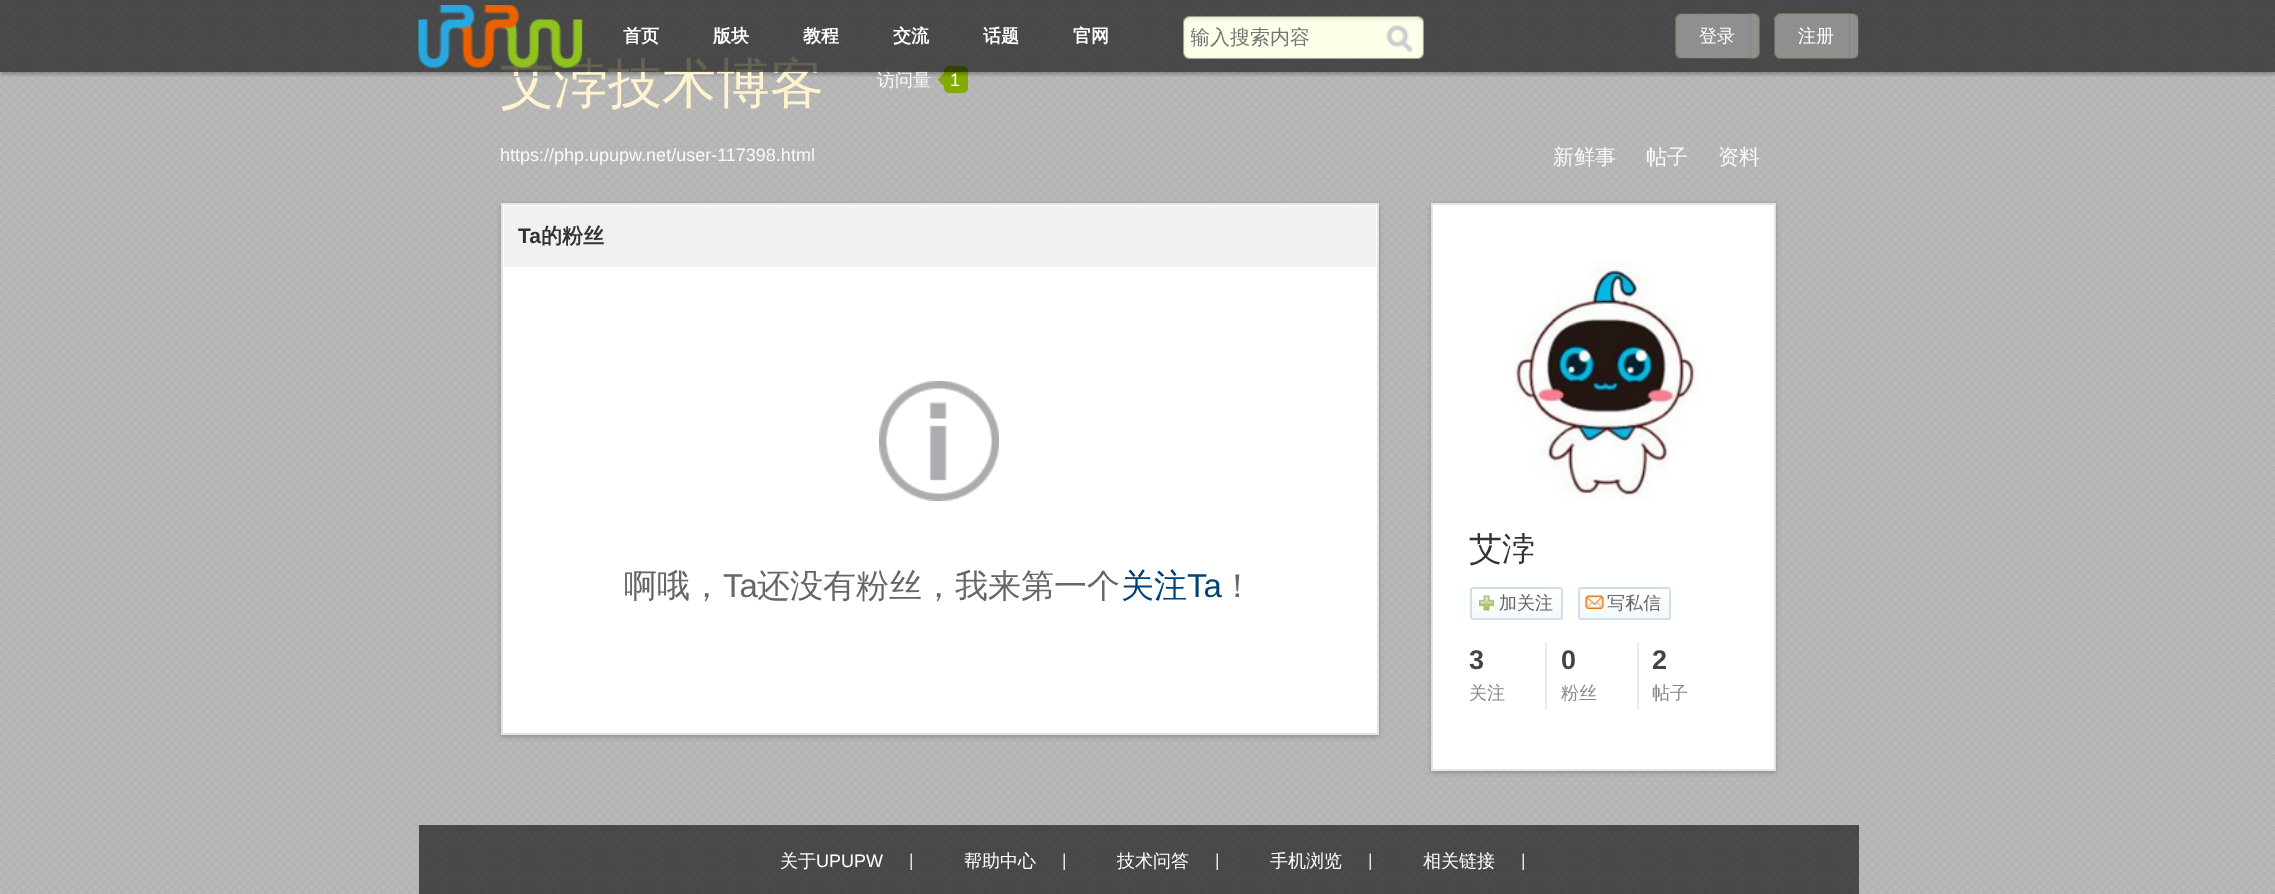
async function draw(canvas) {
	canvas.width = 2275;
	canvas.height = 894;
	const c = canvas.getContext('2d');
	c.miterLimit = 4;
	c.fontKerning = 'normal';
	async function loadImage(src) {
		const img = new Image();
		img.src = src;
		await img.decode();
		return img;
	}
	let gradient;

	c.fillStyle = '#fff';
	c.fillRect(0, 0, 2275, 894);
	c.drawImage(await loadImage('img1.png'), 0, 0, 2275, 894);
	c.fillStyle = '#81ab00';
	c.beginPath();
	c.roundRect(944, 66, 24, 27, 5);
	c.fill();
	c.beginPath();
	c.moveTo(945, 72);
	c.lineTo(945, 87);
	c.lineTo(937.5, 79.5);
	c.closePath();
	c.fill();
	c.save();
	c.beginPath();
	c.rect(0, 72, 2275, 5);
	c.clip();
	c.fillStyle = '#0000004d';
	c.filter = 'blur(2px)';
	c.beginPath();
	c.rect(0, 2, 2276, 72);
	c.fill();
	c.filter = 'none';
	c.restore();
	c.font = '500 54px WenQuanYi Zen Hei';
	c.fillStyle = '#fff4cf';
	c.fillText('艾浡技术博客', 500, 102);
	c.font = '500 18px WenQuanYi Zen Hei';
	c.fillStyle = '#f9f9f9';
	c.fillText('访问量', 877, 86);
	c.fillStyle = '#00000099';
	c.fillRect(0, 0, 2275, 72);
	c.drawImage(await loadImage('img2.png'), 418, 5, 165, 63);
	c.font = 'bold 18px WenQuanYi Zen Hei';
	c.fillStyle = '#fff';
	for (const [text, x, y] of [
		['首页', 623, 42],
		['版块', 713, 42],
		['教程', 803, 42],
		['交流', 893, 42],
		['话题', 983, 42],
		['官网', 1073, 42],
	]) {
		c.fillText(text, x, y);
	}
	c.drawImage(await loadImage('img3.png'), 1183, 16, 241, 43);
	c.save();
	c.beginPath();
	c.rect(1191, 26, 188, 22);
	c.clip();
	c.font = '500 20px WenQuanYi Zen Hei';
	c.fillStyle = '#757575';
	c.fillText('输入搜索内容', 1190, 44);
	c.restore();
	c.drawImage(await loadImage('img4.png'), 1386, 25, 28, 28);
	c.drawImage(await loadImage('img5.png'), 1750, 13, 10, 46);
	c.drawImage(await loadImage('img6.png'), 1675, 13, 76, 46);
	c.font = '500 18px WenQuanYi Zen Hei';
	c.fillText('登录', 1699, 42);
	c.drawImage(await loadImage('img7.png'), 1849, 13, 10, 46);
	c.drawImage(await loadImage('img8.png'), 1774, 13, 76, 46);
	c.fillText('注册', 1798, 42);
	c.font = '18px Liberation Sans';
	c.fillText('1', 950, 86);
	c.fillStyle = '#f9f9f9';
	c.fillText('https://php.upupw.net/user-117398.html', 500, 161);
	c.font = '500 21px WenQuanYi Zen Hei';
	for (const [text, x, y] of [
		['新鲜事', 1553, 164],
		['帖子', 1646, 164],
		['资料', 1718, 164],
	]) {
		c.fillText(text, x, y);
	}
	c.fillStyle = '#00000033';
	c.filter = 'blur(2px)';
	c.beginPath();
	c.rect(501, 204, 878, 533);
	c.fill();
	c.filter = 'none';
	c.fillStyle = '#fff';
	c.beginPath();
	c.rect(502, 204, 876, 530);
	c.fill();
	c.strokeStyle = '#e4e4e4';
	c.lineWidth = 2;
	c.stroke();
	c.fillStyle = '#f1f1f1';
	c.fillRect(504, 206, 872, 61);
	c.font = 'bold 21px Liberation Sans';
	c.fillStyle = '#333';
	c.fillText('Ta', 518, 243);
	c.font = 'bold 21px WenQuanYi Zen Hei';
	c.fillText('的粉丝', 541, 243);
	c.drawImage(await loadImage('img9.png'), 879, 381, 120, 120);
	c.font = '500 33px WenQuanYi Zen Hei';
	c.fillStyle = '#666';
	c.fillText('啊哦，', 624, 597);
	c.font = '33px Liberation Sans';
	c.fillText('Ta', 723, 597);
	c.font = '500 33px WenQuanYi Zen Hei';
	c.fillText('还没有粉丝，我来第一个', 757, 597);
	c.fillStyle = '#004276';
	c.fillText('关注', 1121, 597);
	c.font = '33px Liberation Sans';
	c.fillText('Ta', 1187, 597);
	c.font = '500 33px WenQuanYi Zen Hei';
	c.fillStyle = '#666';
	c.fillText('！', 1221, 597);
	c.fillStyle = '#00000033';
	c.filter = 'blur(2px)';
	c.beginPath();
	c.rect(1431, 204, 345, 569);
	c.fill();
	c.filter = 'none';
	c.fillStyle = '#fff';
	c.beginPath();
	c.rect(1432, 204, 343, 566);
	c.fill();
	c.stroke();
	c.drawImage(await loadImage('img10.png'), 1513, 262, 187, 239);
	c.fillStyle = '#333';
	c.fillText('艾浡', 1469, 560);
	gradient = c.createLinearGradient(1517, 588, 1517, 618);
	gradient.addColorStop(0, '#fff');
	gradient.addColorStop(1, '#f3f8f9');
	c.fillStyle = gradient;
	c.fillRect(1472, 594, 89, 24);
	c.beginPath();
	c.roundRect(1471, 588, 91, 31, 2);
	c.strokeStyle = '#d0dfea';
	c.stroke();
	c.drawImage(await loadImage('img11.png'), 1479, 595, 15, 16);
	c.font = '500 18px WenQuanYi Zen Hei';
	c.fillStyle = '#666';
	c.fillText('加关注', 1499, 609);
	gradient = c.createLinearGradient(1625, 588, 1625, 618);
	gradient.addColorStop(0, '#fff');
	gradient.addColorStop(1, '#f3f8f9');
	c.fillStyle = gradient;
	c.fillRect(1580, 594, 89, 24);
	c.beginPath();
	c.roundRect(1579, 588, 91, 31, 2);
	c.stroke();
	c.drawImage(await loadImage('img12.png'), 1585, 595, 19, 14);
	c.fillStyle = '#666';
	c.fillText('写私信', 1607, 609);
	c.fillStyle = '#eaeaea';
	c.fillRect(1545, 642, 2, 68);
	c.font = 'bold 27px Liberation Sans';
	c.fillStyle = '#444';
	c.fillText('3', 1469, 669);
	c.font = '500 18px WenQuanYi Zen Hei';
	c.fillStyle = '#888';
	c.fillText('关注', 1469, 699);
	c.fillStyle = '#eaeaea';
	c.fillRect(1637, 642, 2, 68);
	c.font = 'bold 27px Liberation Sans';
	c.fillStyle = '#444';
	c.fillText('0', 1561, 669);
	c.font = '500 18px WenQuanYi Zen Hei';
	c.fillStyle = '#888';
	c.fillText('粉丝', 1561, 699);
	c.font = 'bold 27px Liberation Sans';
	c.fillStyle = '#444';
	c.fillText('2', 1652, 669);
	c.font = '500 18px WenQuanYi Zen Hei';
	c.fillStyle = '#888';
	c.fillText('帖子', 1652, 699);
	c.fillStyle = '#00000099';
	c.fillRect(419, 825, 1440, 69);
	c.fillStyle = '#fff';
	c.fillText('关于', 780, 867);
	c.font = '18px Liberation Sans';
	c.fillText('UPUPW', 816, 867);
	c.drawImage(await loadImage('img13.png'), 910, 853, 2, 17);
	c.font = '500 18px WenQuanYi Zen Hei';
	c.fillText('帮助中心', 964, 867);
	c.drawImage(await loadImage('img13.png'), 1063, 853, 2, 17);
	c.fillText('技术问答', 1117, 867);
	c.drawImage(await loadImage('img13.png'), 1216, 853, 2, 17);
	c.fillText('手机浏览', 1270, 867);
	c.drawImage(await loadImage('img13.png'), 1369, 853, 2, 17);
	c.fillText('相关链接', 1423, 867);
	c.drawImage(await loadImage('img13.png'), 1522, 853, 2, 17);
}

draw(document.querySelector('canvas'));
